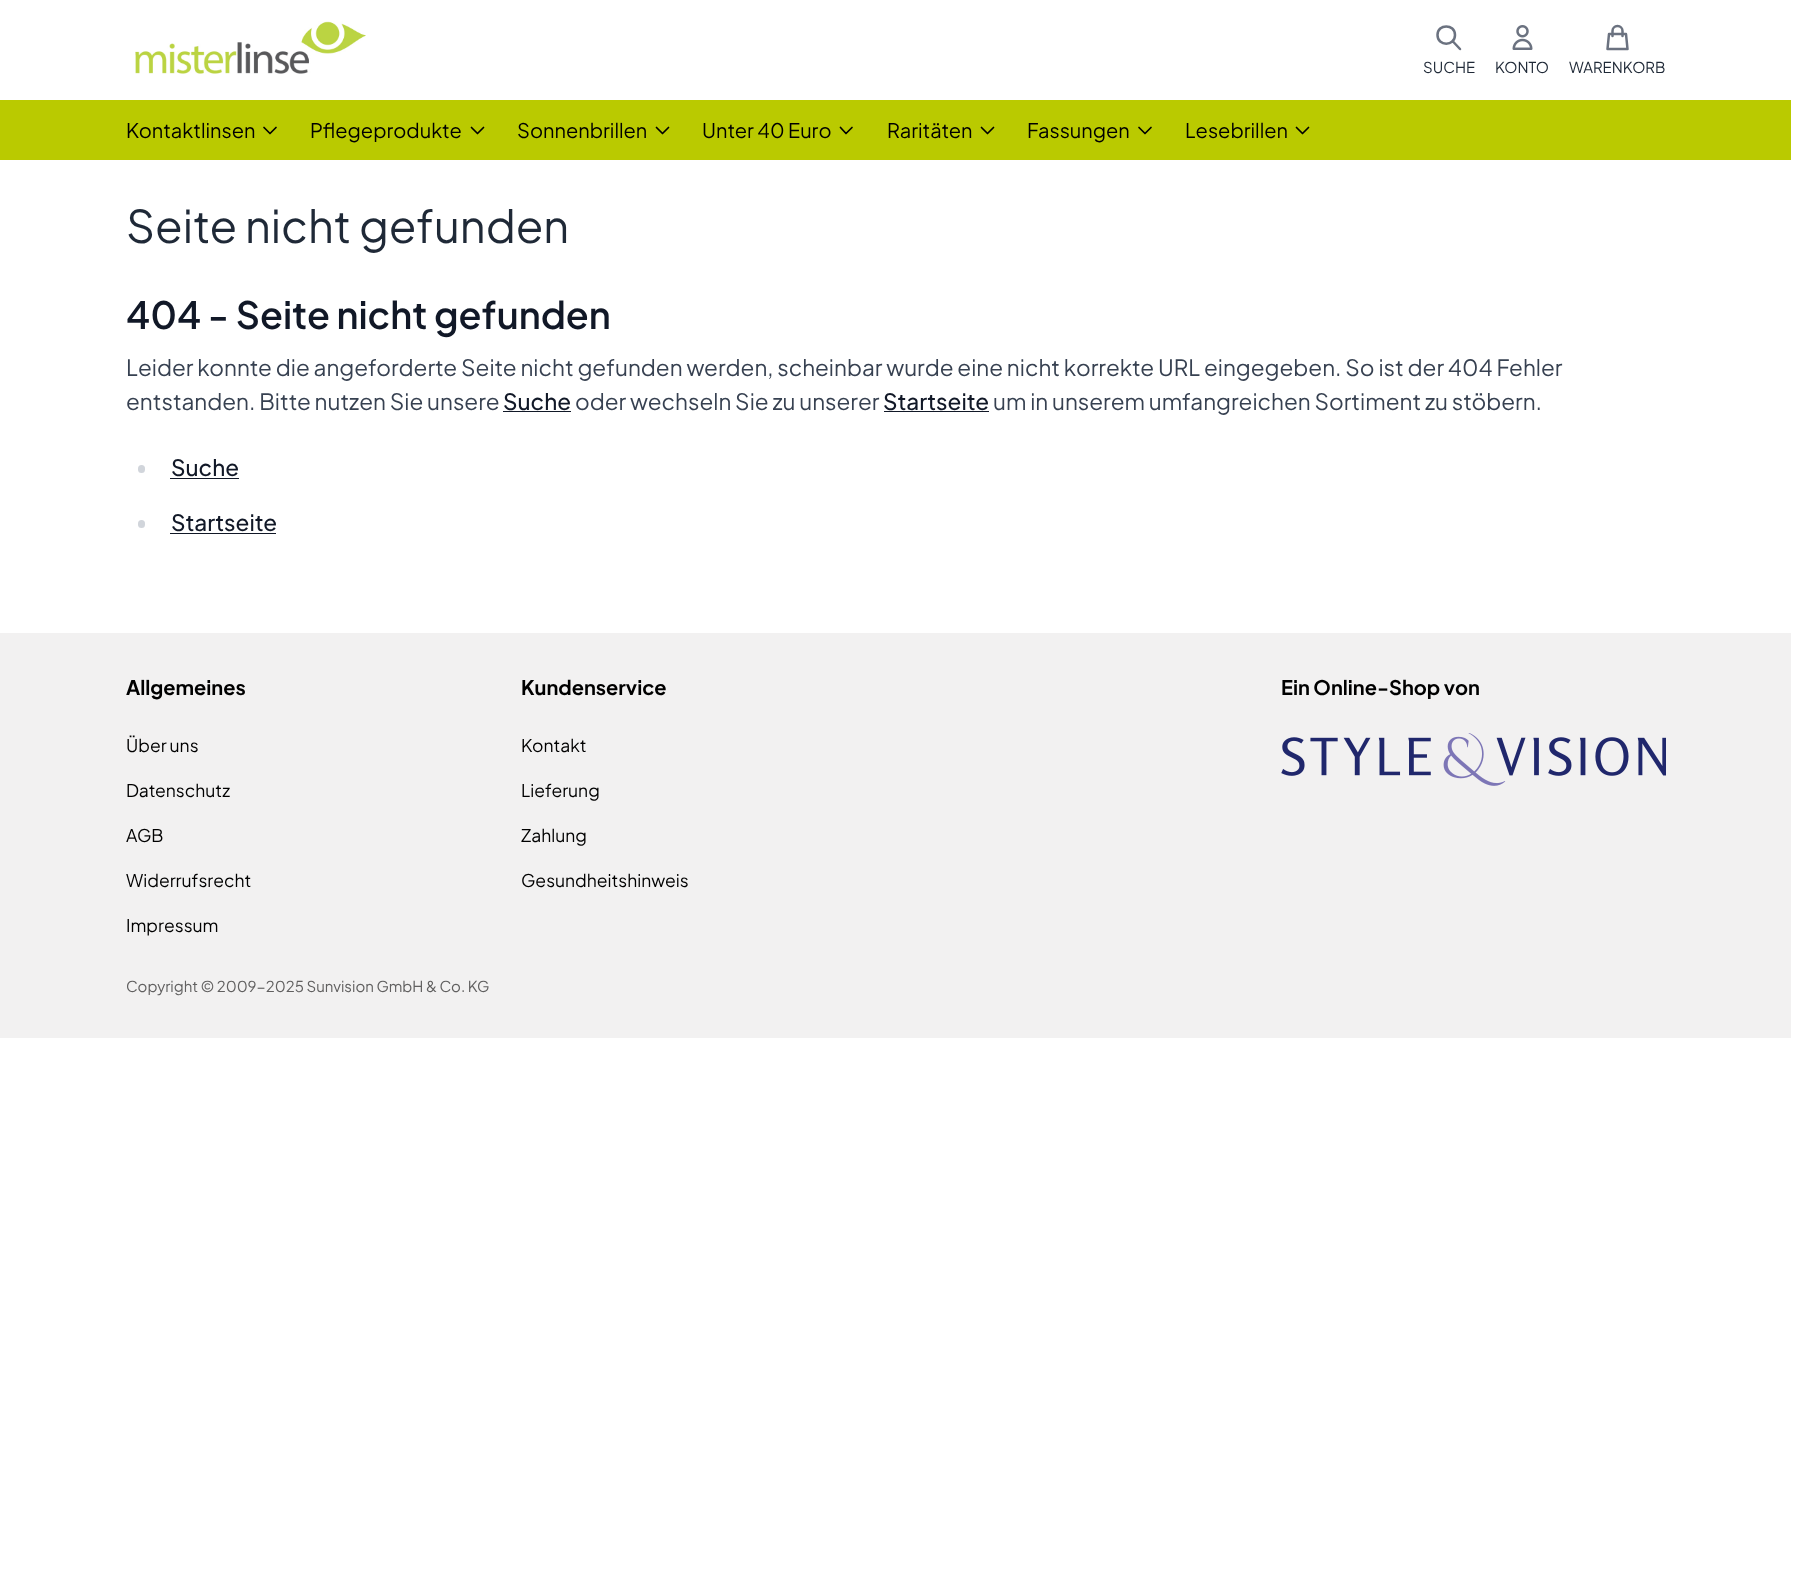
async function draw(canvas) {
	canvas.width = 1810;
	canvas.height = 1578;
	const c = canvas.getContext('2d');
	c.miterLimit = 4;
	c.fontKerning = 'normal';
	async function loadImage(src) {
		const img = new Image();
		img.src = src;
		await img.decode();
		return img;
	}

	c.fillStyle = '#fff';
	c.fillRect(0, 0, 1810, 1578);
	c.drawImage(await loadImage('img1.png'), 135, 21, 231, 53);
	c.beginPath();
	c.moveTo(1460, 49);
	c.lineTo(1452.5, 41);
	c.moveTo(1455, 35);
	c.bezierCurveTo(1455, 46.5, 1437.5, 46.5, 1437.5, 35);
	c.bezierCurveTo(1437.5, 23.5, 1455, 23.5, 1455, 35);
	c.closePath();
	c.strokeStyle = '#6b7280';
	c.lineWidth = 2.5;
	c.lineCap = 'round';
	c.lineJoin = 'round';
	c.stroke();
	c.font = '15px Plus Jakarta Sans';
	c.fillStyle = '#1f2937';
	c.fillText('SUCHE', 1423, 73);
	c.drawImage(await loadImage('img2.png'), 1512, 25, 21, 25);
	c.fillText('KONTO', 1495, 73);
	c.beginPath();
	c.moveTo(1622.5, 36);
	c.lineTo(1622.5, 31);
	c.bezierCurveTo(1622.5, 28.5, 1620.5, 26, 1617.5, 26);
	c.bezierCurveTo(1614.5, 26, 1612.5, 28.5, 1612.5, 31);
	c.lineTo(1612.5, 36);
	c.moveTo(1609, 34);
	c.lineTo(1626, 34);
	c.lineTo(1627.5, 49);
	c.lineTo(1607.5, 49);
	c.closePath();
	c.stroke();
	c.fillText('WARENKORB', 1569, 73);
	c.fillStyle = '#baca00';
	c.fillRect(0, 100, 1791, 60);
	c.font = '20px Plus Jakarta Sans';
	c.fillStyle = '#000';
	c.fillText('Kontaktlinsen', 126, 138);
	c.beginPath();
	c.moveTo(276, 127.5);
	c.lineTo(270, 133.5);
	c.lineTo(264, 127.5);
	c.strokeStyle = '#000';
	c.lineWidth = 1.7;
	c.stroke();
	c.fillText('Pflegeprodukte', 310, 138);
	c.beginPath();
	c.moveTo(483.5, 127.5);
	c.lineTo(477.5, 133.5);
	c.lineTo(471.5, 127.5);
	c.stroke();
	c.fillText('Sonnenbrillen', 517, 138);
	c.beginPath();
	c.moveTo(668.5, 127.5);
	c.lineTo(662.5, 133.5);
	c.lineTo(656.5, 127.5);
	c.stroke();
	c.fillText('Unter 40 Euro', 702, 138);
	c.beginPath();
	c.moveTo(852, 127.5);
	c.lineTo(846, 133.5);
	c.lineTo(840.5, 127.5);
	c.stroke();
	c.fillText('Raritäten', 887, 138);
	c.beginPath();
	c.moveTo(993.5, 127.5);
	c.lineTo(987.5, 133.5);
	c.lineTo(981.5, 127.5);
	c.stroke();
	c.fillText('Fassungen', 1027, 138);
	c.beginPath();
	c.moveTo(1151, 127.5);
	c.lineTo(1145, 133.5);
	c.lineTo(1139, 127.5);
	c.stroke();
	c.fillText('Lesebrillen', 1185, 138);
	c.beginPath();
	c.moveTo(1308.5, 127.5);
	c.lineTo(1302.5, 133.5);
	c.lineTo(1296.5, 127.5);
	c.stroke();
	c.font = '45px Plus Jakarta Sans';
	c.fillStyle = '#1f2937';
	c.fillText('Seite nicht gefunden', 126, 243);
	c.font = '600 37.5px Plus Jakarta Sans';
	c.fillStyle = '#111827';
	c.fillText('404 - Seite nicht gefunden', 126, 329);
	c.font = '22.5px Plus Jakarta Sans';
	c.fillStyle = '#374151';
	c.fillText('Leider konnte die angeforderte Seite nicht gefunden werden, scheinbar wurde eine nicht korrekte URL eingegeben. So ist der 404 Fehler', 126, 376);
	c.fillText('entstanden. Bitte nutzen Sie unsere', 126, 410);
	c.font = '500 22.5px Plus Jakarta Sans';
	c.fillStyle = '#111827';
	c.fillText('Suche', 503, 410);
	c.fillRect(503, 411, 68, 1);
	c.font = '22.5px Plus Jakarta Sans';
	c.fillStyle = '#374151';
	c.fillText('oder wechseln Sie zu unserer', 575, 410);
	c.font = '500 22.5px Plus Jakarta Sans';
	c.fillStyle = '#111827';
	c.fillText('Startseite', 883, 410);
	c.fillRect(884, 411, 105, 1);
	c.font = '22.5px Plus Jakarta Sans';
	c.fillStyle = '#374151';
	c.fillText('um in unserem umfangreichen Sortiment zu stöbern.', 993, 410);
	c.fillStyle = '#d1d5db';
	c.beginPath();
	c.roundRect(138, 465, 7, 8, 3.5);
	c.fill();
	c.font = '500 22.5px Plus Jakarta Sans';
	c.fillStyle = '#111827';
	c.fillText('Suche', 171, 476);
	c.fillRect(170, 478, 69, 1);
	c.fillStyle = '#d1d5db';
	c.beginPath();
	c.roundRect(138, 520, 7, 8, 3.5);
	c.fill();
	c.fillStyle = '#111827';
	c.fillText('Startseite', 171, 531);
	c.fillRect(170, 533, 106, 1);
	c.fillStyle = '#f2f1f1';
	c.fillRect(0, 633, 1791, 405);
	c.font = 'bold 20px Plus Jakarta Sans';
	c.fillStyle = '#000';
	c.fillText('Allgemeines', 126, 695);
	c.font = '17.5px Plus Jakarta Sans';
	for (const [text, x, y] of [
		['Über uns', 126, 752],
		['Datenschutz', 126, 797],
		['AGB', 126, 842],
		['Widerrufsrecht', 126, 887],
		['Impressum', 126, 932],
	]) {
		c.fillText(text, x, y);
	}
	c.font = 'bold 20px Plus Jakarta Sans';
	c.fillText('Kundenservice', 521, 695);
	c.font = '17.5px Plus Jakarta Sans';
	for (const [text, x, y] of [
		['Kontakt', 521, 752],
		['Lieferung', 521, 797],
		['Zahlung', 521, 842],
		['Gesundheitshinweis', 521, 887],
	]) {
		c.fillText(text, x, y);
	}
	c.font = 'bold 20px Plus Jakarta Sans';
	c.fillText('Ein Online-Shop von', 1281, 695);
	c.drawImage(await loadImage('img3.png'), 1281, 733, 385, 53);
	c.font = '15px Plus Jakarta Sans';
	c.fillStyle = '#616060';
	c.fillText('Copyright © 2009-2025 Sunvision GmbH & Co. KG', 126, 992);
}

draw(document.querySelector('canvas'));
